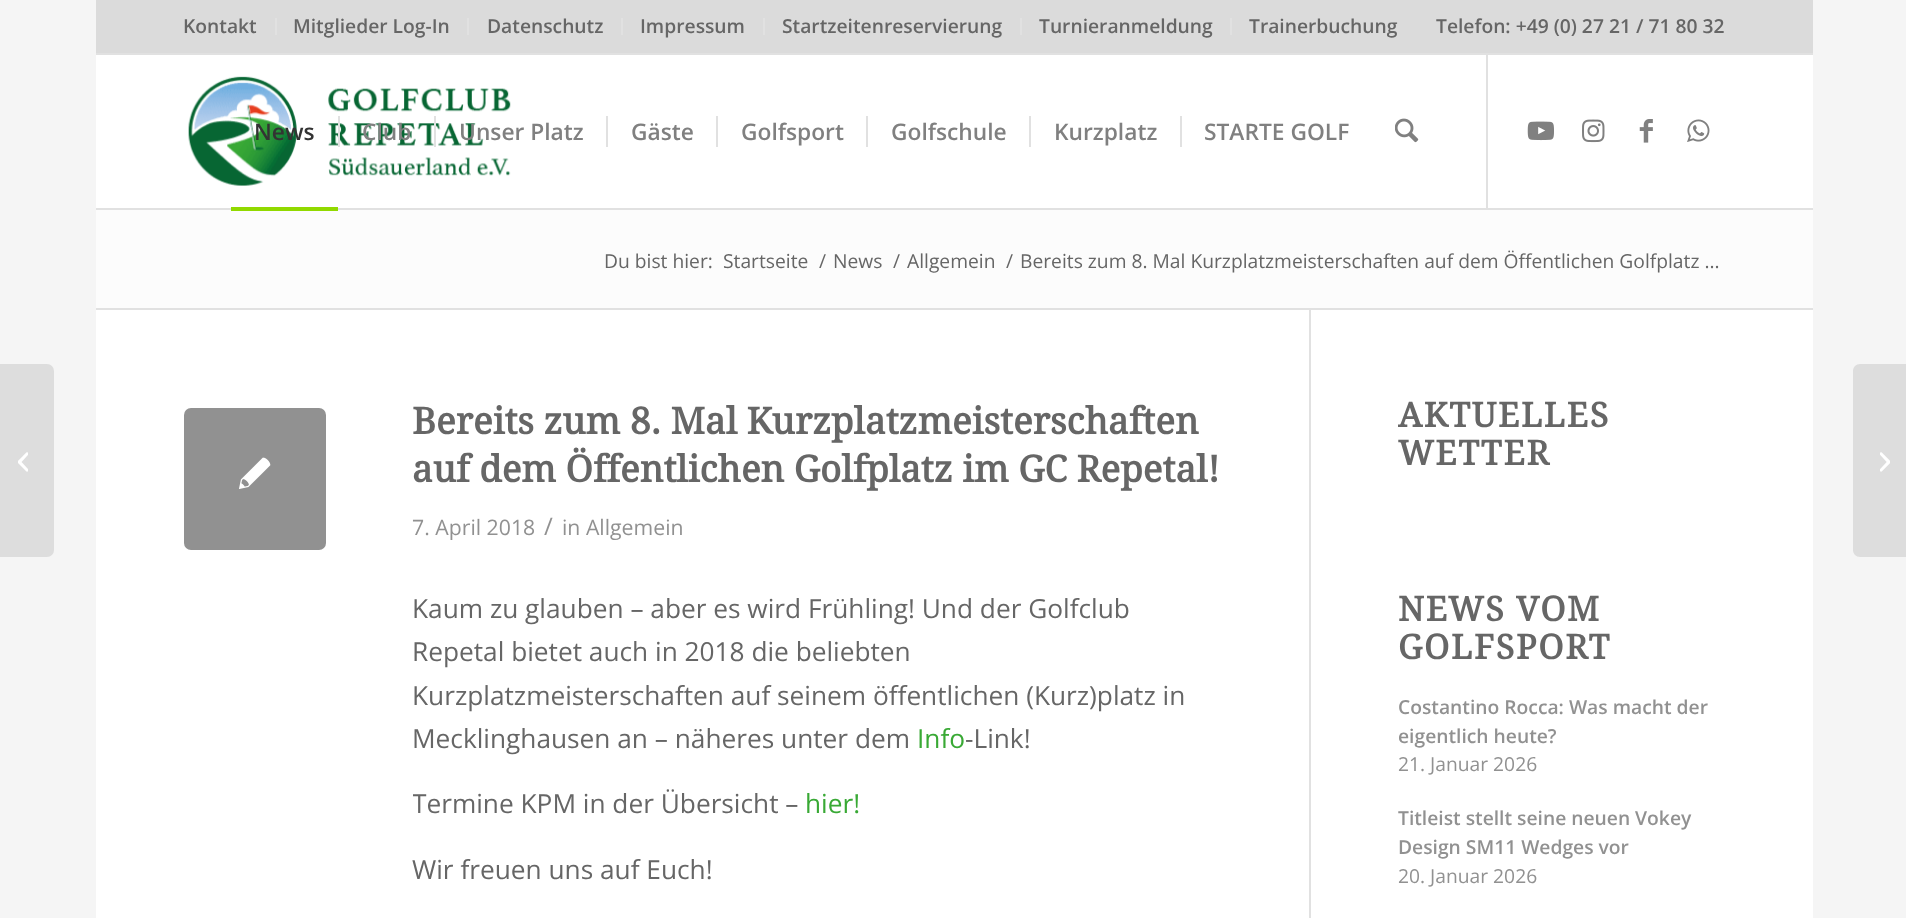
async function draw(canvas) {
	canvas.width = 1906;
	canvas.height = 918;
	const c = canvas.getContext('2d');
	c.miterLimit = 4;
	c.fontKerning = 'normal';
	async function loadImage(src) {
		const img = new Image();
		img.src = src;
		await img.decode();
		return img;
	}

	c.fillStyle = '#f5f5f5';
	c.fillRect(0, 0, 1906, 918);
	for (const [x, y, w, h, color] of [
		[96, 0, 1717, 53, '#dbdbdb'],
		[96, 55, 1717, 153, '#fff'],
		[1486, 54, 2, 154, '#e1e1e1'],
		[96, 53, 1717, 2, '#e1e1e1'],
		[275, 18, 2, 17, '#e1e1e1'],
	]) {
		c.fillStyle = color;
		c.fillRect(x, y, w, h);
	}
	c.font = '600 19.25px Open Sans';
	c.fillStyle = '#666';
	c.fillText('Kontakt', 183, 33);
	c.fillStyle = '#e1e1e1';
	c.fillRect(467, 18, 2, 17);
	c.fillStyle = '#666';
	c.fillText('Mitglieder Log-In', 293, 33);
	c.fillStyle = '#e1e1e1';
	c.fillRect(621, 18, 2, 17);
	c.fillStyle = '#666';
	c.fillText('Datenschutz', 487, 33);
	c.fillStyle = '#e1e1e1';
	c.fillRect(763, 18, 2, 17);
	c.fillStyle = '#666';
	c.fillText('Impressum', 640, 33);
	c.fillStyle = '#e1e1e1';
	c.fillRect(1020, 18, 2, 17);
	c.fillStyle = '#666';
	c.fillText('Startzeitenreservierung', 782, 33);
	c.fillStyle = '#e1e1e1';
	c.fillRect(1230, 18, 2, 17);
	c.fillStyle = '#666';
	for (const [text, x, y] of [
		['Turnieranmeldung', 1039, 33],
		['Trainerbuchung', 1249, 33],
		['Telefon: +49 (0) 27 21 / 71 80 32', 1436, 33],
	]) {
		c.fillText(text, x, y);
	}
	c.fillStyle = '#e1e1e1';
	c.fillRect(96, 208, 1717, 2);
	c.drawImage(await loadImage('img1.png'), 188, 76, 323, 110);
	c.font = '600 22.75px Open Sans';
	c.fillStyle = '#333';
	c.fillText('News', 254, 140);
	c.fillStyle = '#fcfcfc';
	c.fillRect(96, 210, 1717, 98);
	c.fillStyle = '#91d900';
	c.fillRect(231, 207, 107, 4);
	c.fillStyle = '#808080';
	c.fillText('Club', 362, 140);
	c.fillStyle = '#e1e1e1';
	c.fillRect(338, 116, 2, 31);
	c.fillStyle = '#808080';
	c.fillText('Unser Platz', 459, 140);
	c.fillStyle = '#e1e1e1';
	c.fillRect(434, 116, 2, 31);
	c.fillStyle = '#808080';
	c.fillText('Gäste', 631, 140);
	c.fillStyle = '#e1e1e1';
	c.fillRect(606, 116, 2, 31);
	c.fillStyle = '#808080';
	c.fillText('Golfsport', 741, 140);
	c.fillStyle = '#e1e1e1';
	c.fillRect(716, 116, 2, 31);
	c.fillStyle = '#808080';
	c.fillText('Golfschule', 891, 140);
	c.fillStyle = '#e1e1e1';
	c.fillRect(866, 116, 2, 31);
	c.fillStyle = '#808080';
	c.fillText('Kurzplatz', 1054, 140);
	c.fillStyle = '#e1e1e1';
	c.fillRect(1029, 116, 2, 31);
	c.fillStyle = '#808080';
	c.fillText('STARTE GOLF', 1204, 140);
	c.fillStyle = '#e1e1e1';
	c.fillRect(1180, 116, 2, 31);
	c.drawImage(await loadImage('img2.png'), 1395, 118, 24, 25);
	c.drawImage(await loadImage('img3.png'), 1527, 121, 27, 20);
	c.drawImage(await loadImage('img4.png'), 1582, 119, 23, 24);
	c.drawImage(await loadImage('img5.png'), 1639, 119, 14, 24);
	c.drawImage(await loadImage('img6.png'), 1687, 119, 23, 23);
	c.fillStyle = '#ddd';
	c.beginPath();
	c.roundRect(0, 364, 54, 193, [0, 7, 7, 0]);
	c.fill();
	c.drawImage(await loadImage('img7.png'), 18, 452, 10, 20);
	c.fillStyle = '#fff';
	c.fillRect(96, 310, 1717, 608);
	c.font = '19.25px Open Sans';
	c.fillStyle = '#666';
	for (const [text, x, y] of [
		['Du bist hier:', 604, 268],
		['Startseite', 723, 268],
		['/', 819, 268],
		['News', 833, 268],
		['/', 893, 268],
		['Allgemein', 907, 268],
		['/', 1006, 268],
		['Bereits zum 8. Mal Kurzplatzmeisterschaften auf dem Öffentlichen Golfplatz ...', 1020, 268],
	]) {
		c.fillText(text, x, y);
	}
	c.fillStyle = '#e1e1e1';
	c.fillRect(96, 308, 1717, 2);
	c.fillRect(1309, 310, 2, 608);
	c.fillStyle = '#919191';
	c.beginPath();
	c.roundRect(184, 408, 142, 142, 7);
	c.fill();
	c.drawImage(await loadImage('img8.png'), 239, 457, 32, 32);
	c.font = 'bold 36.75px Droid Serif';
	c.fillStyle = '#666';
	c.fillText('Bereits zum 8. Mal Kurzplatzmeisterschaften', 412, 434);
	c.fillText('auf dem Öffentlichen Golfplatz im GC Repetal!', 412, 482);
	c.font = '21.25px Open Sans';
	c.fillStyle = '#919191';
	c.fillText('7. April 2018', 412, 535);
	c.font = '24px Open Sans';
	c.fillText('/', 544, 535);
	c.font = '21.25px Open Sans';
	c.fillText('in Allgemein', 562, 535);
	c.font = '26.25px Open Sans';
	c.fillStyle = '#666';
	for (const [text, x, y] of [
		['Kaum zu glauben – aber es wird Frühling! Und der Golfclub', 412, 618],
		['Repetal bietet auch in 2018 die beliebten', 412, 661],
		['Kurzplatzmeisterschaften auf seinem öffentlichen (Kurz)platz in', 412, 705],
		['Mecklinghausen an – näheres unter dem', 412, 748],
	]) {
		c.fillText(text, x, y);
	}
	c.fillStyle = '#39a935';
	c.fillText('Info', 917, 748);
	c.fillStyle = '#666';
	c.fillText('-Link!', 965, 748);
	c.save();
	c.beginPath();
	c.rect(413, 397, 896, 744);
	c.clip();
	c.fillText('Termine KPM in der Übersicht –', 412, 813);
	c.restore();
	c.fillStyle = '#39a935';
	c.fillText('hier!', 805, 813);
	c.fillStyle = '#666';
	c.fillText('Wir freuen uns auf Euch!', 412, 879);
	c.letterSpacing = '1.75px';
	c.font = 'bold 34px Droid Serif';
	for (const [text, x, y] of [
		['AKTUELLES', 1398, 427],
		['WETTER', 1398, 465],
		['NEWS VOM', 1398, 621],
		['GOLFSPORT', 1398, 659],
	]) {
		c.fillText(text, x, y);
	}
	c.letterSpacing = '0px';
	c.font = '600 19.25px Open Sans';
	c.fillStyle = '#919191';
	c.fillText('Costantino Rocca: Was macht der', 1398, 714);
	c.fillText('eigentlich heute?', 1398, 743);
	c.font = '19.25px Open Sans';
	c.fillText('21. Januar 2026', 1398, 771);
	c.font = '600 19.25px Open Sans';
	c.fillText('Titleist stellt seine neuen Vokey', 1398, 825);
	c.fillText('Design SM11 Wedges vor', 1398, 854);
	c.font = '19.25px Open Sans';
	c.fillText('20. Januar 2026', 1398, 883);
	c.fillStyle = '#ddd';
	c.beginPath();
	c.moveTo(1860, 364);
	c.lineTo(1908, 364);
	c.lineTo(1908, 557);
	c.lineTo(1860, 557);
	c.bezierCurveTo(1856, 557, 1853, 554, 1853, 550);
	c.lineTo(1853, 371);
	c.bezierCurveTo(1853, 367, 1856, 364, 1860, 364);
	c.closePath();
	c.fill();
	c.drawImage(await loadImage('img9.png'), 1880, 452, 10, 20);
}

draw(document.querySelector('canvas'));
